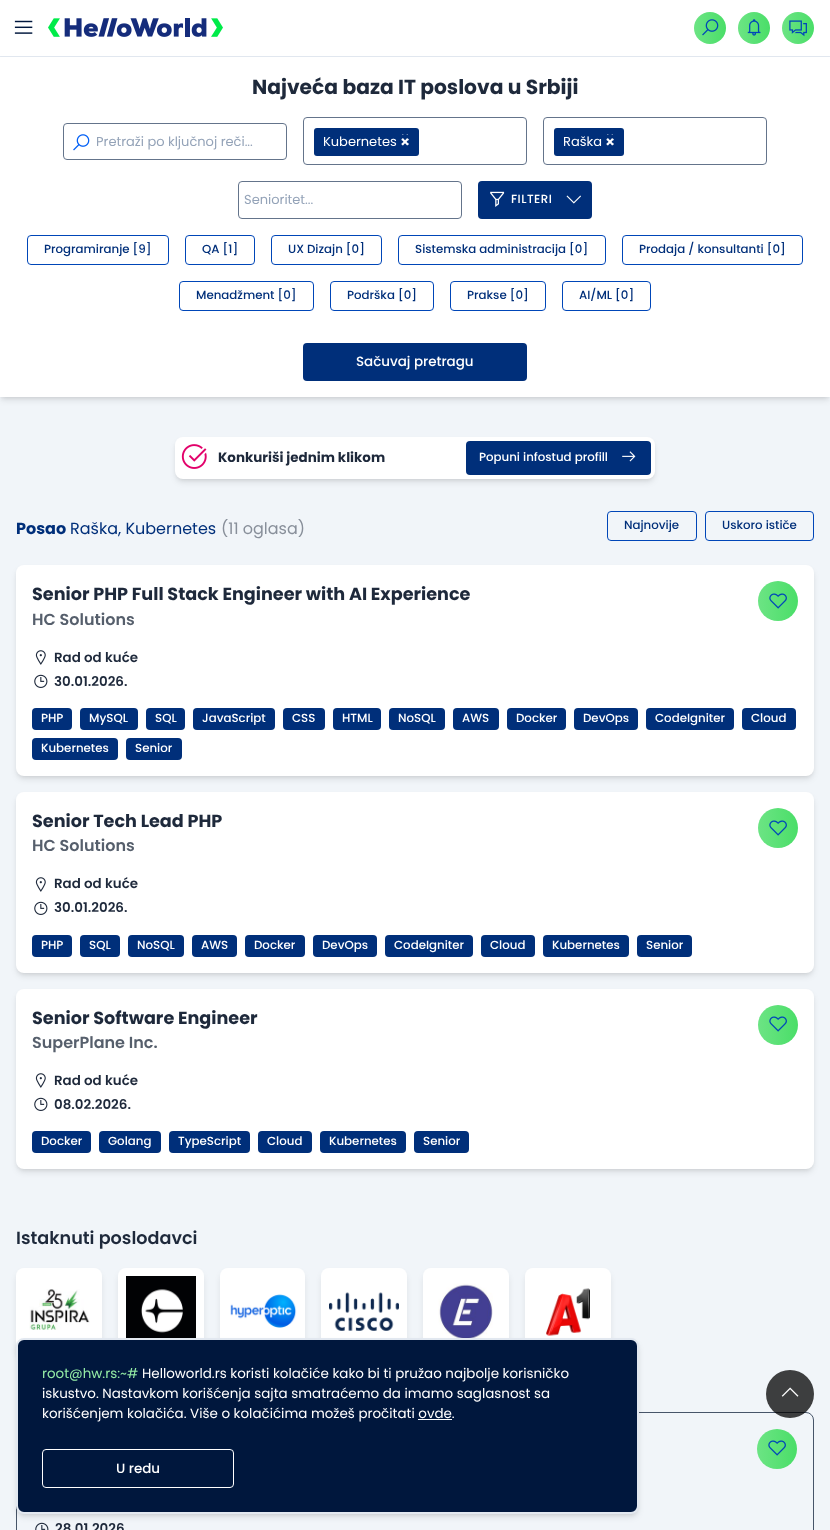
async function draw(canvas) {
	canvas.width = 830;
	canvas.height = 1530;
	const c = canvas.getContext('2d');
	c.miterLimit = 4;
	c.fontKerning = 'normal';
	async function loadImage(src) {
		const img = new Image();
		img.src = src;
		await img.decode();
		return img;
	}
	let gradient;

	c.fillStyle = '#f1f5f9';
	c.fillRect(0, 0, 830, 1530);
	c.fillStyle = '#fff';
	c.fillRect(0, 0, 830, 56);
	c.fillStyle = '#e2e8f0';
	c.fillRect(0, 56, 830, 1);
	c.drawImage(await loadImage('img1.png'), 14, 20, 19, 14);
	c.drawImage(await loadImage('img2.png'), 48, 18, 175, 19);
	gradient = c.createLinearGradient(694, 28, 726, 28);
	gradient.addColorStop(0, '#6ce484');
	gradient.addColorStop(1, '#4ade68');
	c.fillStyle = gradient;
	c.beginPath();
	c.arc(710, 28, 16, 0, 2 * Math.PI);
	c.fill();
	c.drawImage(await loadImage('img3.png'), 702, 19, 17, 17);
	gradient = c.createLinearGradient(738, 28, 770, 28);
	gradient.addColorStop(0, '#6ce484');
	gradient.addColorStop(1, '#4ade68');
	c.fillStyle = gradient;
	c.beginPath();
	c.arc(754, 28, 16, 0, 2 * Math.PI);
	c.fill();
	c.drawImage(await loadImage('img4.png'), 747, 19, 14, 17);
	gradient = c.createLinearGradient(782, 28, 814, 28);
	gradient.addColorStop(0, '#6ce484');
	gradient.addColorStop(1, '#4ade68');
	c.fillStyle = gradient;
	c.beginPath();
	c.arc(798, 28, 16, 0, 2 * Math.PI);
	c.fill();
	c.drawImage(await loadImage('img5.png'), 789, 20, 18, 17);
	c.fillStyle = '#0000001a';
	c.filter = 'blur(2px)';
	c.beginPath();
	c.rect(2, 61, 826, 336);
	c.fill();
	c.filter = 'none';
	c.filter = 'blur(3px)';
	c.beginPath();
	c.rect(1, 62, 828, 338);
	c.fill();
	c.filter = 'none';
	c.fillStyle = '#fff';
	c.fillRect(0, 57, 830, 340);
	c.font = 'bold 20.25px Poppins';
	c.fillStyle = '#1e293b';
	c.fillText('Najveća baza IT poslova u Srbiji', 252, 94);
	c.beginPath();
	c.roundRect(63.5, 123.5, 223, 36, 3.5);
	c.strokeStyle = '#64748b';
	c.stroke();
	c.drawImage(await loadImage('img6.png'), 73, 134, 17, 17);
	c.font = '13px Poppins';
	c.fillStyle = '#94a3b8';
	c.fillText('Pretraži po ključnoj reči...', 96, 146);
	c.beginPath();
	c.roundRect(303.5, 117.5, 223, 47, 3.5);
	c.stroke();
	c.fillStyle = '#002f7a';
	c.beginPath();
	c.roundRect(314, 128, 105, 28, 3);
	c.fill();
	c.fillStyle = '#fff';
	c.fillText('Kubernetes', 323, 146);
	c.drawImage(await loadImage('img7.png'), 401, 134, 8, 12);
	c.beginPath();
	c.roundRect(543.5, 117.5, 223, 47, 3.5);
	c.stroke();
	c.fillStyle = '#002f7a';
	c.beginPath();
	c.roundRect(554, 128, 70, 28, 3);
	c.fill();
	c.fillStyle = '#fff';
	c.fillText('Raška', 563, 146);
	c.drawImage(await loadImage('img7.png'), 606, 134, 8, 12);
	c.beginPath();
	c.roundRect(238.5, 181.5, 223, 37, 3.5);
	c.stroke();
	c.fillStyle = '#94a3b8';
	c.fillText('Senioritet...', 244, 204);
	c.fillStyle = '#002f7a';
	c.beginPath();
	c.roundRect(478, 181, 114, 38, 4);
	c.fill();
	c.drawImage(await loadImage('img8.png'), 490, 191, 15, 16);
	c.letterSpacing = '0.5px';
	c.font = '500 11.8px Poppins';
	c.fillStyle = '#fff';
	c.fillText('FILTERI', 511, 203);
	c.drawImage(await loadImage('img9.png'), 566, 195, 15, 9);
	c.beginPath();
	c.roundRect(27.5, 235.5, 141, 29, 3.5);
	c.strokeStyle = '#0046b8';
	c.stroke();
	c.letterSpacing = '0px';
	c.fillStyle = '#002f7a';
	c.fillText('Programiranje [9]', 44, 253);
	c.beginPath();
	c.roundRect(185.5, 235.5, 69, 29, 3.5);
	c.stroke();
	c.fillText('QA [1]', 202, 253);
	c.beginPath();
	c.roundRect(271.5, 235.5, 110, 29, 3.5);
	c.stroke();
	c.fillText('UX Dizajn [0]', 288, 253);
	c.beginPath();
	c.roundRect(398.5, 235.5, 207, 29, 3.5);
	c.stroke();
	c.fillText('Sistemska administracija [0]', 415, 253);
	c.beginPath();
	c.roundRect(622.5, 235.5, 180, 29, 3.5);
	c.stroke();
	c.fillText('Prodaja / konsultanti [0]', 639, 253);
	c.beginPath();
	c.roundRect(179.5, 281.5, 134, 29, 3.5);
	c.stroke();
	c.fillText('Menadžment [0]', 196, 299);
	c.beginPath();
	c.roundRect(330.5, 281.5, 103, 29, 3.5);
	c.stroke();
	c.fillText('Podrška [0]', 347, 299);
	c.beginPath();
	c.roundRect(450.5, 281.5, 95, 29, 3.5);
	c.stroke();
	c.fillText('Prakse [0]', 467, 299);
	c.beginPath();
	c.roundRect(562.5, 281.5, 88, 29, 3.5);
	c.stroke();
	c.fillText('AI/ML [0]', 579, 299);
	c.beginPath();
	c.roundRect(303, 343, 224, 38, 4);
	c.fill();
	c.font = '500 13.45px Poppins';
	c.fillStyle = '#fff';
	c.fillText('Sačuvaj pretragu', 356, 366);
	c.fillStyle = '#0000001a';
	c.filter = 'blur(2px)';
	c.beginPath();
	c.roundRect(177, 441, 476, 38, 6);
	c.fill();
	c.filter = 'none';
	c.filter = 'blur(3px)';
	c.beginPath();
	c.roundRect(176, 442, 478, 40, 7);
	c.fill();
	c.filter = 'none';
	c.fillStyle = '#fff';
	c.beginPath();
	c.roundRect(175, 437, 480, 42, 8);
	c.fill();
	c.drawImage(await loadImage('img10.png'), 181, 444, 26, 25);
	c.font = 'bold 13.45px Poppins';
	c.fillStyle = '#1e293b';
	c.fillText('Konkuriši jednim klikom', 218, 462);
	c.fillStyle = '#002f7a';
	c.beginPath();
	c.roundRect(466, 441, 185, 34, 4);
	c.fill();
	c.font = '500 11.8px Poppins';
	c.fillStyle = '#fff';
	c.fillText('Popuni infostud profill', 479, 461);
	c.drawImage(await loadImage('img11.png'), 622, 451, 14, 11);
	c.font = 'bold 16px Poppins';
	c.fillStyle = '#002f7a';
	c.fillText('Posao', 16, 534);
	c.font = '16px Poppins';
	c.fillText('Raška, Kubernetes', 70, 534);
	c.fillStyle = '#888f9a';
	c.fillText('(11 oglasa)', 221, 534);
	c.beginPath();
	c.roundRect(607.5, 511.5, 89, 29, 3.5);
	c.stroke();
	c.font = '500 11.8px Poppins';
	c.fillStyle = '#002f7a';
	c.fillText('Najnovije', 624, 529);
	c.beginPath();
	c.roundRect(705.5, 511.5, 108, 29, 3.5);
	c.stroke();
	c.fillText('Uskoro ističe', 722, 529);
	c.fillStyle = '#0000001a';
	c.filter = 'blur(2px)';
	c.beginPath();
	c.roundRect(18, 569, 794, 207, 6);
	c.fill();
	c.filter = 'none';
	c.filter = 'blur(3px)';
	c.beginPath();
	c.roundRect(17, 570, 796, 209, 7);
	c.fill();
	c.filter = 'none';
	c.fillStyle = '#fff';
	c.beginPath();
	c.roundRect(16, 565, 798, 211, 8);
	c.fill();
	gradient = c.createLinearGradient(758, 601, 798, 601);
	gradient.addColorStop(0, '#6ce484');
	gradient.addColorStop(1, '#4ade68');
	c.fillStyle = gradient;
	c.beginPath();
	c.arc(778, 601, 20, 0, 2 * Math.PI);
	c.fill();
	c.drawImage(await loadImage('img12.png'), 769, 593, 18, 16);
	c.font = 'bold 17.6px Poppins';
	c.fillStyle = '#1e293b';
	c.fillText('Senior PHP Full Stack Engineer with AI Experience', 32, 600);
	c.font = '600 16px Poppins';
	c.fillStyle = '#565f6c';
	c.fillText('HC Solutions', 32, 625);
	c.drawImage(await loadImage('img13.png'), 35, 650, 11, 15);
	c.font = '600 13.45px Poppins';
	c.fillStyle = '#1e293b';
	c.fillText('Rad od kuće', 54, 662);
	c.drawImage(await loadImage('img14.png'), 34, 674, 14, 14);
	c.fillText('30.01.2026.', 54, 686);
	c.fillStyle = '#002f7a';
	c.beginPath();
	c.roundRect(32, 708, 40, 22, 4);
	c.fill();
	c.font = '500 11.8px Poppins';
	c.fillStyle = '#fff';
	c.fillText('PHP', 41, 722);
	c.fillStyle = '#002f7a';
	c.beginPath();
	c.roundRect(80, 708, 58, 22, 4);
	c.fill();
	c.fillStyle = '#fff';
	c.fillText('MySQL', 89, 722);
	c.fillStyle = '#002f7a';
	c.beginPath();
	c.roundRect(146, 708, 39, 22, 4);
	c.fill();
	c.fillStyle = '#fff';
	c.fillText('SQL', 155, 722);
	c.fillStyle = '#002f7a';
	c.beginPath();
	c.roundRect(193, 708, 82, 22, 4);
	c.fill();
	c.fillStyle = '#fff';
	c.fillText('JavaScript', 202, 722);
	c.fillStyle = '#002f7a';
	c.beginPath();
	c.roundRect(283, 708, 42, 22, 4);
	c.fill();
	c.fillStyle = '#fff';
	c.fillText('CSS', 292, 722);
	c.fillStyle = '#002f7a';
	c.beginPath();
	c.roundRect(333, 708, 48, 22, 4);
	c.fill();
	c.fillStyle = '#fff';
	c.fillText('HTML', 342, 722);
	c.fillStyle = '#002f7a';
	c.beginPath();
	c.roundRect(389, 708, 56, 22, 4);
	c.fill();
	c.fillStyle = '#fff';
	c.fillText('NoSQL', 398, 722);
	c.fillStyle = '#002f7a';
	c.beginPath();
	c.roundRect(453, 708, 46, 22, 4);
	c.fill();
	c.fillStyle = '#fff';
	c.fillText('AWS', 462, 722);
	c.fillStyle = '#002f7a';
	c.beginPath();
	c.roundRect(507, 708, 59, 22, 4);
	c.fill();
	c.fillStyle = '#fff';
	c.fillText('Docker', 516, 722);
	c.fillStyle = '#002f7a';
	c.beginPath();
	c.roundRect(574, 708, 64, 22, 4);
	c.fill();
	c.fillStyle = '#fff';
	c.fillText('DevOps', 583, 722);
	c.fillStyle = '#002f7a';
	c.beginPath();
	c.roundRect(646, 708, 88, 22, 4);
	c.fill();
	c.fillStyle = '#fff';
	c.fillText('CodeIgniter', 655, 722);
	c.fillStyle = '#002f7a';
	c.beginPath();
	c.roundRect(742, 708, 54, 22, 4);
	c.fill();
	c.fillStyle = '#fff';
	c.fillText('Cloud', 751, 722);
	c.fillStyle = '#002f7a';
	c.beginPath();
	c.roundRect(32, 738, 86, 22, 4);
	c.fill();
	c.fillStyle = '#fff';
	c.fillText('Kubernetes', 41, 752);
	c.fillStyle = '#002f7a';
	c.beginPath();
	c.roundRect(126, 738, 56, 22, 4);
	c.fill();
	c.fillStyle = '#fff';
	c.fillText('Senior', 135, 752);
	c.fillStyle = '#0000001a';
	c.filter = 'blur(2px)';
	c.beginPath();
	c.roundRect(18, 796, 794, 177, 6);
	c.fill();
	c.filter = 'none';
	c.filter = 'blur(3px)';
	c.beginPath();
	c.roundRect(17, 797, 796, 179, 7);
	c.fill();
	c.filter = 'none';
	c.fillStyle = '#fff';
	c.beginPath();
	c.roundRect(16, 792, 798, 181, 8);
	c.fill();
	c.font = 'bold 17.6px Poppins';
	c.fillStyle = '#1e293b';
	c.fillText('Senior Tech Lead PHP', 32, 827);
	c.font = '600 16px Poppins';
	c.fillStyle = '#565f6c';
	c.fillText('HC Solutions', 32, 851);
	c.drawImage(await loadImage('img13.png'), 35, 877, 11, 15);
	c.font = '600 13.45px Poppins';
	c.fillStyle = '#1e293b';
	c.fillText('Rad od kuće', 54, 888);
	c.drawImage(await loadImage('img14.png'), 34, 901, 14, 14);
	c.fillText('30.01.2026.', 54, 912);
	c.fillStyle = '#002f7a';
	c.beginPath();
	c.roundRect(32, 935, 40, 22, 4);
	c.fill();
	c.font = '500 11.8px Poppins';
	c.fillStyle = '#fff';
	c.fillText('PHP', 41, 949);
	c.fillStyle = '#002f7a';
	c.beginPath();
	c.roundRect(80, 935, 40, 22, 4);
	c.fill();
	c.fillStyle = '#fff';
	c.fillText('SQL', 89, 949);
	c.fillStyle = '#002f7a';
	c.beginPath();
	c.roundRect(128, 935, 56, 22, 4);
	c.fill();
	c.fillStyle = '#fff';
	c.fillText('NoSQL', 137, 949);
	c.fillStyle = '#002f7a';
	c.beginPath();
	c.roundRect(192, 935, 45, 22, 4);
	c.fill();
	c.fillStyle = '#fff';
	c.fillText('AWS', 201, 949);
	c.fillStyle = '#002f7a';
	c.beginPath();
	c.roundRect(245, 935, 60, 22, 4);
	c.fill();
	c.fillStyle = '#fff';
	c.fillText('Docker', 254, 949);
	c.fillStyle = '#002f7a';
	c.beginPath();
	c.roundRect(313, 935, 64, 22, 4);
	c.fill();
	c.fillStyle = '#fff';
	c.fillText('DevOps', 322, 949);
	c.fillStyle = '#002f7a';
	c.beginPath();
	c.roundRect(385, 935, 88, 22, 4);
	c.fill();
	c.fillStyle = '#fff';
	c.fillText('CodeIgniter', 394, 949);
	c.fillStyle = '#002f7a';
	c.beginPath();
	c.roundRect(481, 935, 54, 22, 4);
	c.fill();
	c.fillStyle = '#fff';
	c.fillText('Cloud', 490, 949);
	c.fillStyle = '#002f7a';
	c.beginPath();
	c.roundRect(543, 935, 86, 22, 4);
	c.fill();
	c.fillStyle = '#fff';
	c.fillText('Kubernetes', 552, 949);
	c.fillStyle = '#002f7a';
	c.beginPath();
	c.roundRect(637, 935, 55, 22, 4);
	c.fill();
	c.fillStyle = '#fff';
	c.fillText('Senior', 646, 949);
	gradient = c.createLinearGradient(758, 828, 798, 828);
	gradient.addColorStop(0, '#6ce484');
	gradient.addColorStop(1, '#4ade68');
	c.fillStyle = gradient;
	c.beginPath();
	c.arc(778, 828, 20, 0, 2 * Math.PI);
	c.fill();
	c.drawImage(await loadImage('img12.png'), 769, 820, 18, 16);
	c.fillStyle = '#0000001a';
	c.filter = 'blur(2px)';
	c.beginPath();
	c.roundRect(18, 993, 794, 176, 6);
	c.fill();
	c.filter = 'none';
	c.filter = 'blur(3px)';
	c.beginPath();
	c.roundRect(17, 994, 796, 178, 7);
	c.fill();
	c.filter = 'none';
	c.fillStyle = '#fff';
	c.beginPath();
	c.roundRect(16, 989, 798, 180, 8);
	c.fill();
	c.font = 'bold 17.6px Poppins';
	c.fillStyle = '#1e293b';
	c.fillText('Senior Software Engineer', 32, 1024);
	c.font = '600 16px Poppins';
	c.fillStyle = '#565f6c';
	c.fillText('SuperPlane Inc.', 32, 1048);
	c.drawImage(await loadImage('img13.png'), 35, 1073, 11, 15);
	c.font = '600 13.45px Poppins';
	c.fillStyle = '#1e293b';
	c.fillText('Rad od kuće', 54, 1085);
	c.drawImage(await loadImage('img14.png'), 34, 1097, 14, 14);
	c.fillText('08.02.2026.', 54, 1109);
	c.fillStyle = '#002f7a';
	c.beginPath();
	c.roundRect(32, 1131, 59, 22, 4);
	c.fill();
	c.font = '500 11.8px Poppins';
	c.fillStyle = '#fff';
	c.fillText('Docker', 41, 1145);
	c.fillStyle = '#002f7a';
	c.beginPath();
	c.roundRect(99, 1131, 62, 22, 4);
	c.fill();
	c.fillStyle = '#fff';
	c.fillText('Golang', 108, 1145);
	c.fillStyle = '#002f7a';
	c.beginPath();
	c.roundRect(169, 1131, 81, 22, 4);
	c.fill();
	c.fillStyle = '#fff';
	c.fillText('TypeScript', 178, 1145);
	c.fillStyle = '#002f7a';
	c.beginPath();
	c.roundRect(258, 1131, 54, 22, 4);
	c.fill();
	c.fillStyle = '#fff';
	c.fillText('Cloud', 267, 1145);
	c.fillStyle = '#002f7a';
	c.beginPath();
	c.roundRect(320, 1131, 86, 22, 4);
	c.fill();
	c.fillStyle = '#fff';
	c.fillText('Kubernetes', 329, 1145);
	c.fillStyle = '#002f7a';
	c.beginPath();
	c.roundRect(414, 1131, 55, 22, 4);
	c.fill();
	c.fillStyle = '#fff';
	c.fillText('Senior', 423, 1145);
	gradient = c.createLinearGradient(758, 1025, 798, 1025);
	gradient.addColorStop(0, '#6ce484');
	gradient.addColorStop(1, '#4ade68');
	c.fillStyle = gradient;
	c.beginPath();
	c.arc(778, 1025, 20, 0, 2 * Math.PI);
	c.fill();
	c.drawImage(await loadImage('img12.png'), 769, 1016, 18, 16);
	c.font = '600 17.6px Poppins';
	c.fillStyle = '#1e293b';
	c.fillText('Istaknuti poslodavci', 16, 1244);
	c.fillStyle = '#0000001a';
	c.filter = 'blur(3px)';
	c.beginPath();
	c.roundRect(17, 1273, 84, 86, 7);
	c.fill();
	c.filter = 'none';
	c.fillStyle = '#fff';
	c.beginPath();
	c.roundRect(16, 1268, 86, 88, 8);
	c.fill();
	c.drawImage(await loadImage('img15.png'), 29, 1289, 61, 41);
	c.fillStyle = '#0000001a';
	c.filter = 'blur(3px)';
	c.beginPath();
	c.roundRect(119, 1273, 84, 86, 7);
	c.fill();
	c.filter = 'none';
	c.fillStyle = '#fff';
	c.beginPath();
	c.roundRect(118, 1268, 86, 88, 8);
	c.fill();
	c.drawImage(await loadImage('img16.png'), 126, 1276, 70, 62);
	c.fillStyle = '#0000001a';
	c.filter = 'blur(3px)';
	c.beginPath();
	c.roundRect(221, 1273, 83, 86, 7);
	c.fill();
	c.filter = 'none';
	c.fillStyle = '#fff';
	c.beginPath();
	c.roundRect(220, 1268, 85, 88, 8);
	c.fill();
	c.drawImage(await loadImage('img17.png'), 230, 1294, 67, 34);
	c.fillStyle = '#0000001a';
	c.filter = 'blur(3px)';
	c.beginPath();
	c.roundRect(322, 1273, 84, 86, 7);
	c.fill();
	c.filter = 'none';
	c.fillStyle = '#fff';
	c.beginPath();
	c.roundRect(321, 1268, 86, 88, 8);
	c.fill();
	c.drawImage(await loadImage('img18.png'), 329, 1292, 70, 39);
	c.fillStyle = '#0000001a';
	c.filter = 'blur(3px)';
	c.beginPath();
	c.roundRect(424, 1273, 84, 86, 7);
	c.fill();
	c.filter = 'none';
	c.fillStyle = '#fff';
	c.beginPath();
	c.roundRect(423, 1268, 86, 88, 8);
	c.fill();
	c.drawImage(await loadImage('img19.png'), 438, 1283, 55, 55);
	c.fillStyle = '#0000001a';
	c.filter = 'blur(3px)';
	c.beginPath();
	c.roundRect(526, 1273, 84, 86, 7);
	c.fill();
	c.filter = 'none';
	c.fillStyle = '#fff';
	c.beginPath();
	c.roundRect(525, 1268, 86, 88, 8);
	c.fill();
	c.drawImage(await loadImage('img20.png'), 546, 1288, 44, 48);
	c.beginPath();
	c.roundRect(16.5, 1412.5, 797, 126, 7.5);
	c.strokeStyle = '#475569';
	c.stroke();
	gradient = c.createLinearGradient(757, 1449, 797, 1449);
	gradient.addColorStop(0, '#6ce484');
	gradient.addColorStop(1, '#4ade68');
	c.fillStyle = gradient;
	c.beginPath();
	c.arc(777, 1449, 20, 0, 2 * Math.PI);
	c.fill();
	c.drawImage(await loadImage('img12.png'), 768, 1440, 18, 16);
	c.drawImage(await loadImage('img21.png'), 35, 1522, 14, 8);
	c.font = '600 13.45px Poppins';
	c.fillStyle = '#1e293b';
	c.fillText('28.01.2026', 55, 1533);
	c.fillStyle = '#000000bf';
	c.beginPath();
	c.arc(790, 1394, 24, 0, 2 * Math.PI);
	c.fill();
	c.drawImage(await loadImage('img22.png'), 781, 1387, 18, 10);
	c.fillStyle = '#0000001a';
	c.filter = 'blur(2px)';
	c.beginPath();
	c.roundRect(18, 1342, 619, 172, 6);
	c.fill();
	c.filter = 'none';
	c.filter = 'blur(3px)';
	c.beginPath();
	c.roundRect(17, 1343, 621, 174, 7);
	c.fill();
	c.filter = 'none';
	c.fillStyle = '#00173d';
	c.beginPath();
	c.roundRect(17, 1339, 621, 174, 7);
	c.fill();
	c.strokeStyle = '#e2e8f0';
	c.lineWidth = 2;
	c.stroke();
	c.font = '13.45px Poppins';
	c.fillStyle = '#93eba5';
	c.fillText('root@hw.rs:~#', 42, 1378);
	c.fillStyle = '#fff';
	for (const [text, x, y] of [
		['Helloworld.rs koristi kolačiće kako bi ti pružao najbolje korisničko', 142, 1378],
		['iskustvo. Nastavkom korišćenja sajta smatraćemo da imamo saglasnost sa', 42, 1398],
		['korišćenjem kolačića. Više o kolačićima možeš pročitati ovde.', 42, 1418],
	]) {
		c.fillText(text, x, y);
	}
	c.fillRect(418, 1419, 34, 1);
	c.beginPath();
	c.roundRect(42.5, 1449.5, 191, 38, 3.5);
	c.strokeStyle = '#fff';
	c.lineWidth = 1;
	c.stroke();
	c.font = '500 13.45px Poppins';
	c.fillText('U redu', 116, 1473);
}

draw(document.querySelector('canvas'));
